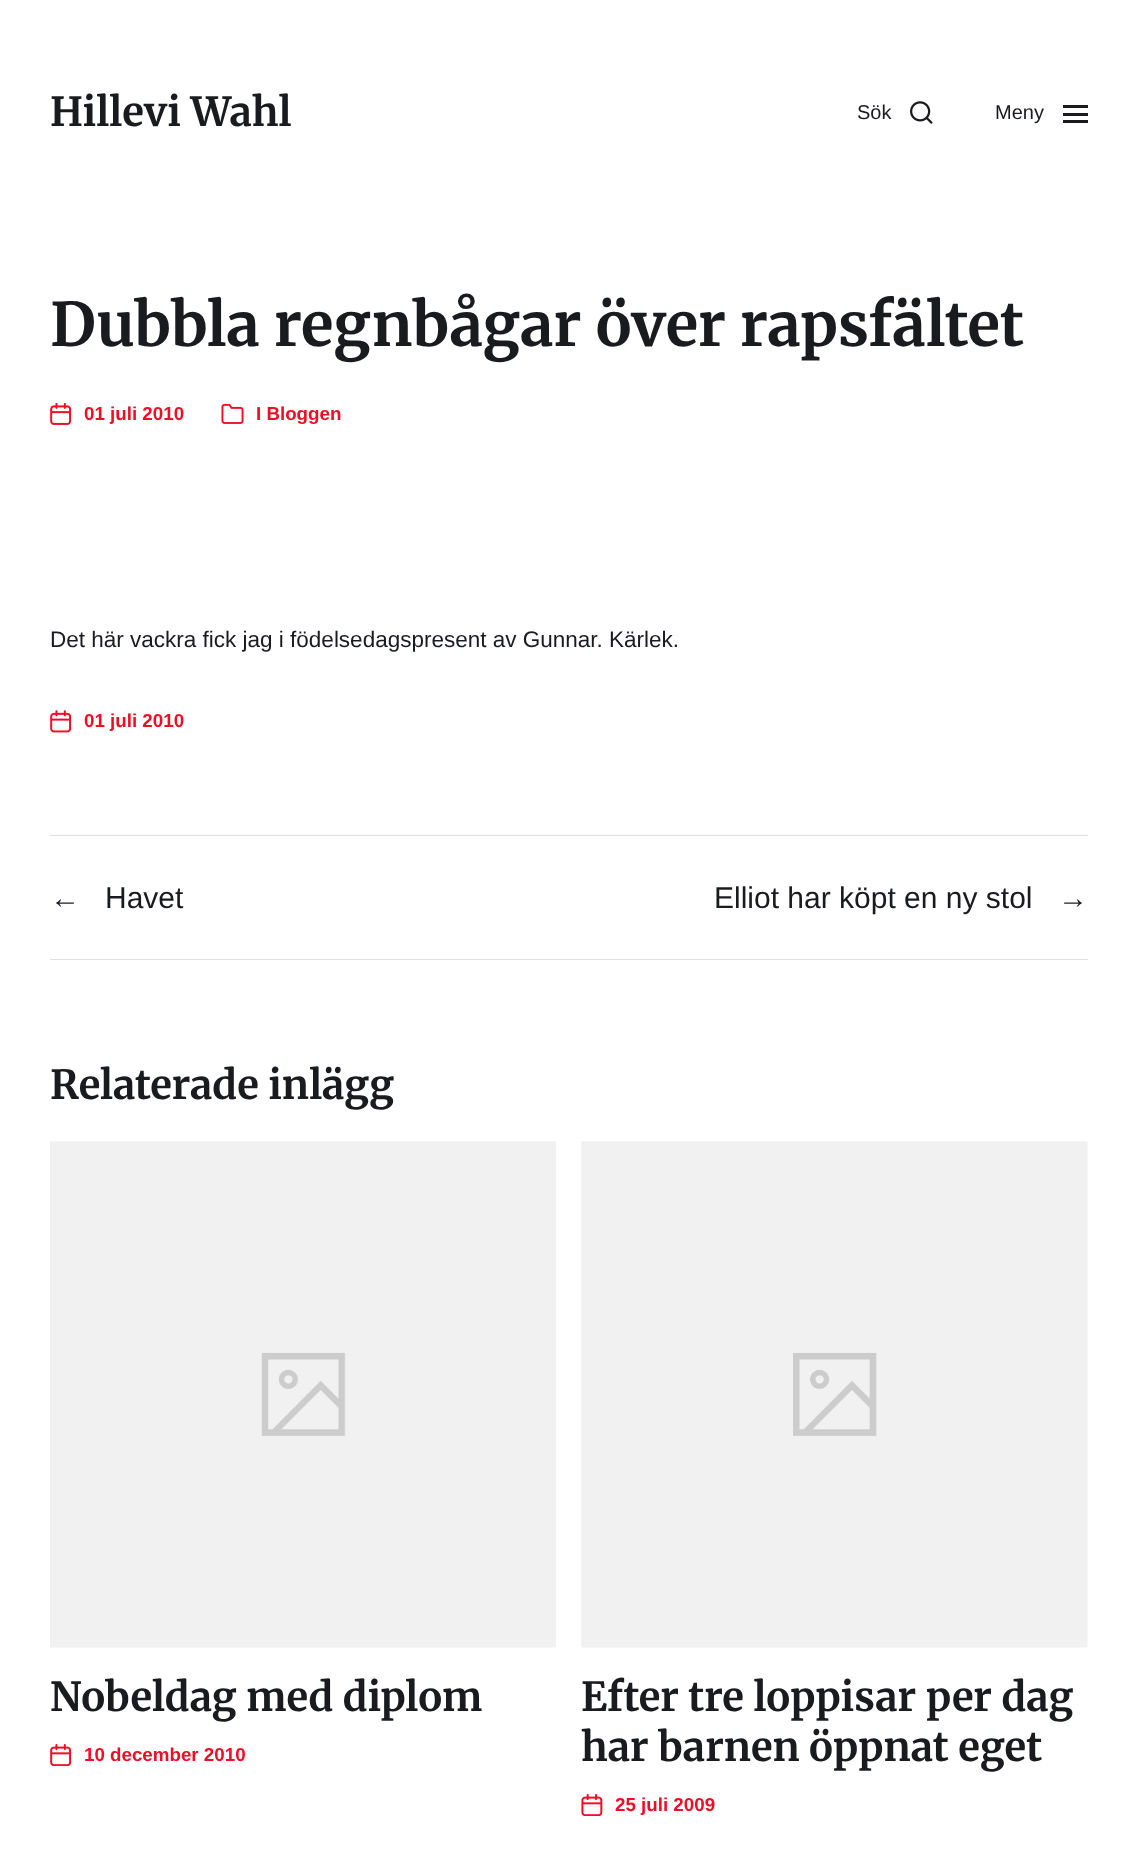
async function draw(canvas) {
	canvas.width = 1137;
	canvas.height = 1865;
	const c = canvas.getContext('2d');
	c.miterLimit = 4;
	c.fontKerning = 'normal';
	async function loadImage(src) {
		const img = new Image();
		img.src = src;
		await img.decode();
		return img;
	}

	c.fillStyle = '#fff';
	c.fillRect(0, 0, 1137, 1865);
	c.font = 'bold 40px Merriweather';
	c.fillStyle = '#1a1b1f';
	c.fillText('Hillevi Wahl', 50, 126);
	c.font = '20px Liberation Sans';
	c.fillText('Sök', 857, 119);
	c.drawImage(await loadImage('img1.png'), 910, 101, 23, 23);
	c.fillText('Meny', 995, 119);
	for (const [x, y, w, h, color] of [
		[1063, 105, 25, 3, '#1a1b1f'],
		[1063, 113, 25, 3, '#1a1b1f'],
		[1063, 120, 25, 3, '#1a1b1f'],
	]) {
		c.fillStyle = color;
		c.fillRect(x, y, w, h);
	}
	c.font = 'bold 60px Merriweather';
	c.fillText('Dubbla regnbågar över rapsfältet', 50, 346);
	c.drawImage(await loadImage('img2.png'), 50, 403, 21, 22);
	c.font = 'bold 18.75px Liberation Sans';
	c.fillStyle = '#f10d26';
	c.fillText('01 juli 2010', 84, 420);
	c.drawImage(await loadImage('img3.png'), 221, 404, 23, 20);
	c.fillText('I Bloggen', 256, 420);
	c.font = '22.5px Liberation Sans';
	c.fillStyle = '#1a1b1f';
	c.fillText('Det här vackra fick jag i födelsedagspresent av Gunnar. Kärlek.', 50, 647);
	c.drawImage(await loadImage('img4.png'), 50, 710, 21, 23);
	c.font = 'bold 18.75px Liberation Sans';
	c.fillStyle = '#f10d26';
	c.fillText('01 juli 2010', 84, 727);
	c.fillStyle = '#e1e1e3';
	c.fillRect(50, 835, 1038, 1);
	c.fillRect(50, 959, 1038, 1);
	c.font = '30px Liberation Sans';
	c.fillStyle = '#1a1b1f';
	for (const [text, x, y] of [
		['←', 50, 908],
		['Havet', 105, 908],
		['Elliot har köpt en ny stol', 714, 908],
		['→', 1058, 908],
	]) {
		c.fillText(text, x, y);
	}
	c.font = 'bold 40px Merriweather';
	c.fillText('Relaterade inlägg', 50, 1099);
	c.drawImage(await loadImage('img5.png'), 50, 1141, 506, 507);
	c.fillText('Nobeldag med diplom', 50, 1711);
	c.drawImage(await loadImage('img6.png'), 50, 1744, 21, 22);
	c.font = 'bold 18.75px Liberation Sans';
	c.fillStyle = '#f10d26';
	c.fillText('10 december 2010', 84, 1761);
	c.drawImage(await loadImage('img7.png'), 581, 1141, 507, 507);
	c.font = 'bold 40px Merriweather';
	c.fillStyle = '#1a1b1f';
	c.fillText('Efter tre loppisar per dag', 581, 1711);
	c.fillText('har barnen öppnat eget', 581, 1761);
	c.drawImage(await loadImage('img8.png'), 581, 1794, 22, 22);
	c.font = 'bold 18.75px Liberation Sans';
	c.fillStyle = '#f10d26';
	c.fillText('25 juli 2009', 615, 1811);
}

draw(document.querySelector('canvas'));
